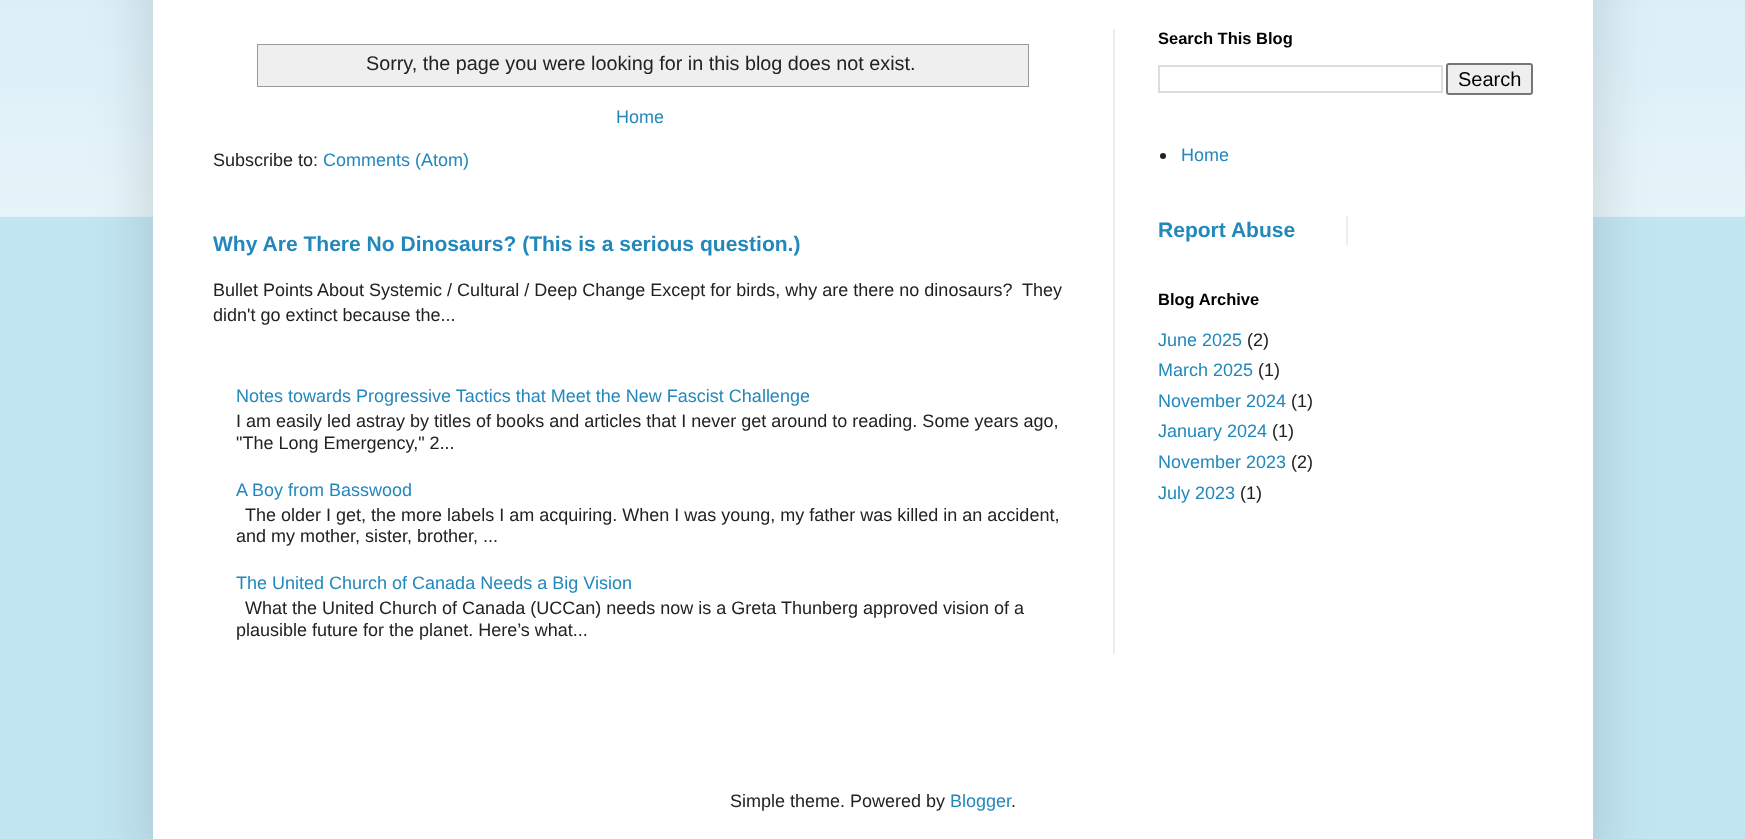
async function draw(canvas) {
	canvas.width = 1745;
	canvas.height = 839;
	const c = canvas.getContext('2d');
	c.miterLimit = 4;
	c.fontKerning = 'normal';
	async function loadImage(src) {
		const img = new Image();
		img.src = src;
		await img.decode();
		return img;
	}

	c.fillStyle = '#c2e5f2';
	c.fillRect(0, 0, 1745, 839);
	c.drawImage(await loadImage('img1.png'), 0, 0, 1745, 217);
	c.fillStyle = '#00000026';
	c.filter = 'blur(30px)';
	c.beginPath();
	c.rect(153, -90, 1440, 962);
	c.fill();
	c.filter = 'none';
	c.fillStyle = '#fff';
	c.fillRect(153, 0, 1440, 839);
	c.fillStyle = '#eee';
	c.fillRect(1113, 29, 2, 625);
	c.strokeStyle = '#999';
	c.lineWidth = 2;
	c.strokeRect(258, 45, 770, 41);
	c.fillStyle = '#efefef';
	c.fillRect(258, 45, 770, 41);
	c.font = '19.8px Liberation Sans';
	c.fillStyle = '#222';
	c.fillText('Sorry, the page you were looking for in this blog does not exist.', 366, 70);
	c.font = '18px Liberation Sans';
	c.fillStyle = '#28b';
	c.fillText('Home', 616, 123);
	c.fillStyle = '#222';
	c.fillText('Subscribe to:', 213, 166);
	c.fillStyle = '#28b';
	c.fillText('Comments (Atom)', 323, 166);
	c.font = 'bold 21.05px Liberation Sans';
	c.fillText('Why Are There No Dinosaurs? (This is a serious question.)', 213, 251);
	c.font = '18px Liberation Sans';
	c.fillStyle = '#222';
	c.fillText('Bullet Points About Systemic / Cultural / Deep Change Except for birds, why are there no dinosaurs?  They', 213, 296);
	c.fillText('didn\'t go extinct because the...', 213, 321);
	c.fillStyle = '#28b';
	c.fillText('Notes towards Progressive Tactics that Meet the New Fascist Challenge', 236, 402);
	c.fillStyle = '#222';
	c.fillText('I am easily led astray by titles of books and articles that I never get around to reading. Some years ago,', 236, 427);
	c.fillText('"The Long Emergency," 2...', 236, 449);
	c.fillStyle = '#28b';
	c.fillText('A Boy from Basswood', 236, 496);
	c.fillStyle = '#222';
	c.fillText('The older I get, the more labels I am acquiring. When I was young, my father was killed in an accident,', 245, 521);
	c.fillText('and my mother, sister, brother, ...', 236, 542);
	c.fillStyle = '#28b';
	c.fillText('The United Church of Canada Needs a Big Vision', 236, 589);
	c.fillStyle = '#222';
	c.fillText('What the United Church of Canada (UCCan) needs now is a Greta Thunberg approved vision of a', 245, 614);
	c.fillText('plausible future for the planet. Here’s what...', 236, 636);
	c.font = 'bold 16.5px Liberation Sans';
	c.fillStyle = '#000';
	c.fillText('Search This Blog', 1158, 44);
	c.strokeStyle = '#ddd';
	c.strokeRect(1159, 66, 283, 26);
	c.fillStyle = '#efefef';
	c.beginPath();
	c.roundRect(1447, 64, 85, 30, 2);
	c.fill();
	c.strokeStyle = '#767676';
	c.stroke();
	c.font = '20px Liberation Sans';
	c.fillStyle = '#000';
	c.fillText('Search', 1458, 86);
	c.fillStyle = '#222';
	c.beginPath();
	c.arc(1163, 156, 3, 0, 2 * Math.PI);
	c.fill();
	c.font = '18px Liberation Sans';
	c.fillStyle = '#28b';
	c.fillText('Home', 1181, 161);
	c.font = 'bold 21.05px Liberation Sans';
	c.fillText('Report Abuse', 1158, 237);
	c.fillStyle = '#eee';
	c.fillRect(1346, 216, 2, 29);
	c.font = 'bold 16.5px Liberation Sans';
	c.fillStyle = '#000';
	c.fillText('Blog Archive', 1158, 305);
	c.font = '18px Liberation Sans';
	c.fillStyle = '#28b';
	c.fillText('June 2025', 1158, 346);
	c.fillStyle = '#222';
	c.fillText('(2)', 1247, 346);
	c.fillStyle = '#28b';
	c.fillText('March 2025', 1158, 376);
	c.fillStyle = '#222';
	c.fillText('(1)', 1258, 376);
	c.fillStyle = '#28b';
	c.fillText('November 2024', 1158, 407);
	c.fillStyle = '#222';
	c.fillText('(1)', 1291, 407);
	c.fillStyle = '#28b';
	c.fillText('January 2024', 1158, 437);
	c.fillStyle = '#222';
	c.fillText('(1)', 1272, 437);
	c.fillStyle = '#28b';
	c.fillText('November 2023', 1158, 468);
	c.fillStyle = '#222';
	c.fillText('(2)', 1291, 468);
	c.fillStyle = '#28b';
	c.fillText('July 2023', 1158, 499);
	c.fillStyle = '#222';
	c.fillText('(1)', 1240, 499);
	c.fillText('Simple theme. Powered by', 730, 807);
	c.fillStyle = '#28b';
	c.fillText('Blogger', 950, 807);
	c.fillStyle = '#222';
	c.fillText('.', 1011, 807);
}

draw(document.querySelector('canvas'));
